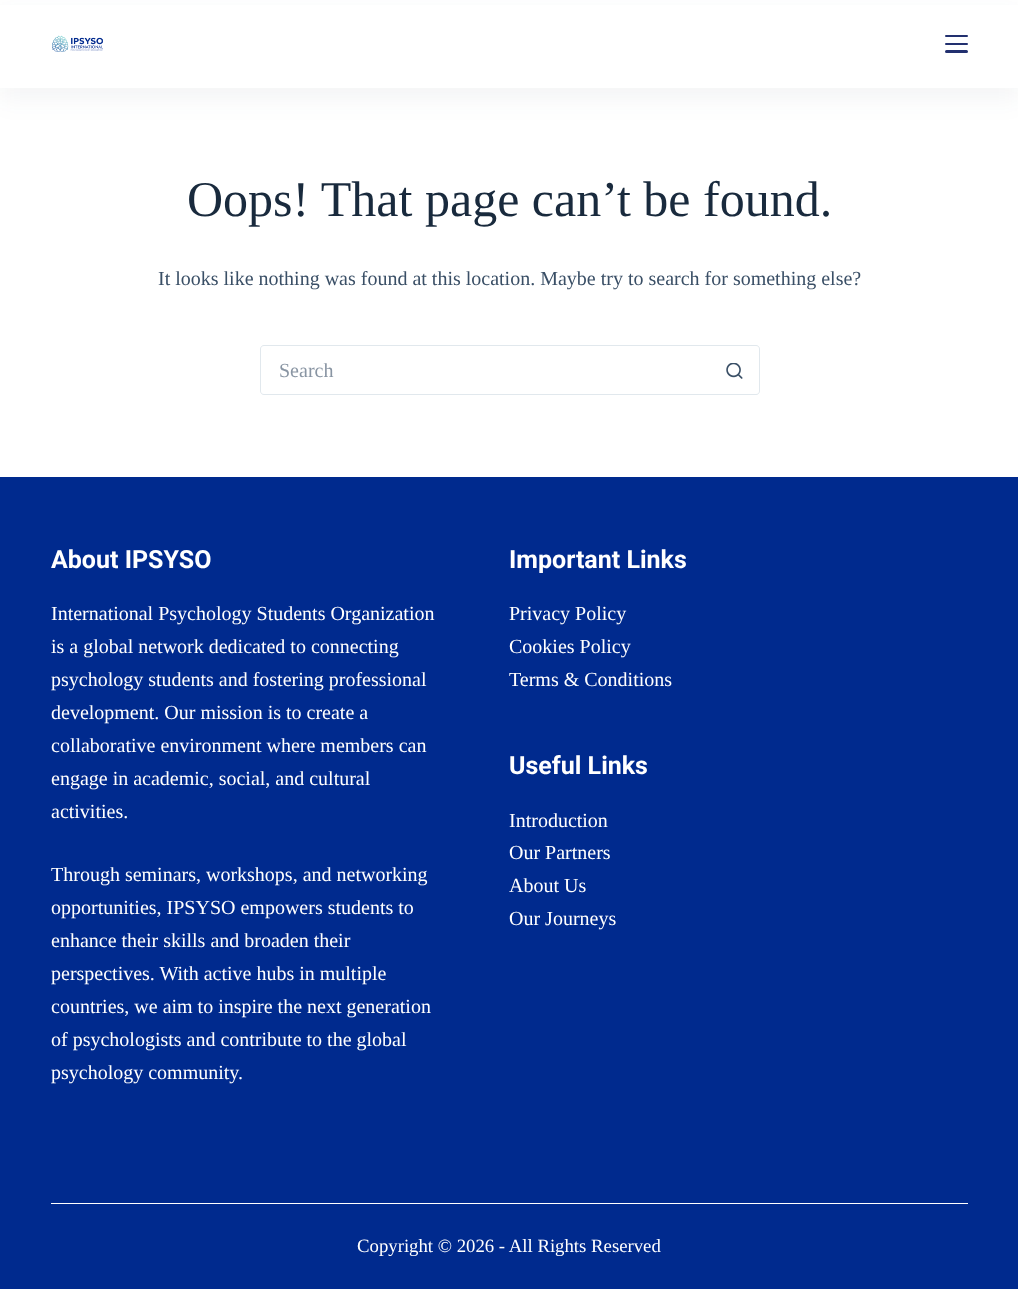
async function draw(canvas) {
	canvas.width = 1018;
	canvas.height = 1289;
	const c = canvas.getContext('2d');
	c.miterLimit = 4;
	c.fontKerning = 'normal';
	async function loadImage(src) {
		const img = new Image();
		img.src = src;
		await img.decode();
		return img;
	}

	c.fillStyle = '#fff';
	c.fillRect(0, 0, 1018, 1289);
	c.fillStyle = '#2b3d4f0d';
	c.filter = 'blur(12.5px)';
	c.beginPath();
	c.rect(0, 13, 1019, 87);
	c.fill();
	c.filter = 'none';
	c.fillStyle = '#fff';
	c.fillRect(0, 5, 1018, 83);
	c.drawImage(await loadImage('img1.png'), 52, 35, 51, 17);
	c.fillStyle = '#22306f';
	c.beginPath();
	c.roundRect(945, 35, 23, 2, 1);
	c.fill();
	c.beginPath();
	c.roundRect(945, 43, 23, 2, 1);
	c.fill();
	c.beginPath();
	c.roundRect(945, 50, 23, 3, 1.5);
	c.fill();
	c.font = '50px Liberation Serif';
	c.fillStyle = '#192a3d';
	c.fillText('Oops! That page can’t be found.', 187, 216);
	c.font = '20px Liberation Serif';
	c.fillStyle = '#3a4f66';
	c.fillText('It looks like nothing was found at this location. Maybe try to search for something else?', 158, 285);
	c.fillStyle = '#e1e8ed';
	c.beginPath();
	c.moveTo(264, 345);
	c.lineTo(710, 345);
	c.lineTo(710, 395);
	c.lineTo(264, 395);
	c.bezierCurveTo(262, 395, 260, 393, 260, 391);
	c.lineTo(260, 349);
	c.bezierCurveTo(260, 347, 262, 345, 264, 345);
	c.closePath();
	c.moveTo(264, 346);
	c.lineTo(710, 346);
	c.lineTo(710, 394);
	c.lineTo(264, 394);
	c.bezierCurveTo(262, 394, 261, 393, 261, 391);
	c.lineTo(261, 349);
	c.bezierCurveTo(261, 347, 262, 346, 264, 346);
	c.closePath();
	c.fill('evenodd');
	c.fillStyle = '#8995a3';
	c.fillText('Search', 279, 377);
	c.fillStyle = '#e1e8ed';
	c.beginPath();
	c.moveTo(710, 345);
	c.lineTo(756, 345);
	c.bezierCurveTo(758, 345, 760, 347, 760, 349);
	c.lineTo(760, 391);
	c.bezierCurveTo(760, 393, 758, 395, 756, 395);
	c.lineTo(710, 395);
	c.closePath();
	c.moveTo(710, 346);
	c.lineTo(756, 346);
	c.bezierCurveTo(758, 346, 759, 347, 759, 349);
	c.lineTo(759, 391);
	c.bezierCurveTo(759, 393, 758, 394, 756, 394);
	c.lineTo(710, 394);
	c.closePath();
	c.fill('evenodd');
	c.drawImage(await loadImage('img2.png'), 726, 363, 17, 16);
	c.fillStyle = '#002a8e';
	c.fillRect(0, 477, 1018, 812);
	c.font = 'bold 25px Roboto';
	c.fillStyle = '#fff';
	c.fillText('About IPSYSO', 51, 568);
	c.font = '20px Liberation Serif';
	for (const [text, x, y] of [
		['International Psychology Students Organization', 51, 620],
		['is a global network dedicated to connecting', 51, 653],
		['psychology students and fostering professional', 51, 686],
		['development. Our mission is to create a', 51, 719],
		['collaborative environment where members can', 51, 752],
		['engage in academic, social, and cultural', 51, 785],
		['activities.', 51, 818],
		['Through seminars, workshops, and networking', 51, 881],
		['opportunities, IPSYSO empowers students to', 51, 914],
		['enhance their skills and broaden their', 51, 947],
		['perspectives. With active hubs in multiple', 51, 980],
		['countries, we aim to inspire the next generation', 51, 1013],
		['of psychologists and contribute to the global', 51, 1046],
		['psychology community.', 51, 1079],
	]) {
		c.fillText(text, x, y);
	}
	c.font = 'bold 25px Roboto';
	c.fillText('Important Links', 509, 568);
	c.font = '20px Liberation Serif';
	for (const [text, x, y] of [
		['Privacy Policy', 509, 620],
		['Cookies Policy', 509, 653],
		['Terms & Conditions', 509, 686],
	]) {
		c.fillText(text, x, y);
	}
	c.font = 'bold 25px Roboto';
	c.fillText('Useful Links', 509, 774);
	c.font = '20px Liberation Serif';
	for (const [text, x, y] of [
		['Introduction', 509, 827],
		['Our Partners', 509, 859],
		['About Us', 509, 892],
		['Our Journeys', 509, 925],
	]) {
		c.fillText(text, x, y);
	}
	c.fillRect(51, 1203, 917, 1);
	c.font = '18.75px Liberation Serif';
	c.fillText('Copyright © 2026 - All Rights Reserved', 357, 1252);
}

draw(document.querySelector('canvas'));
